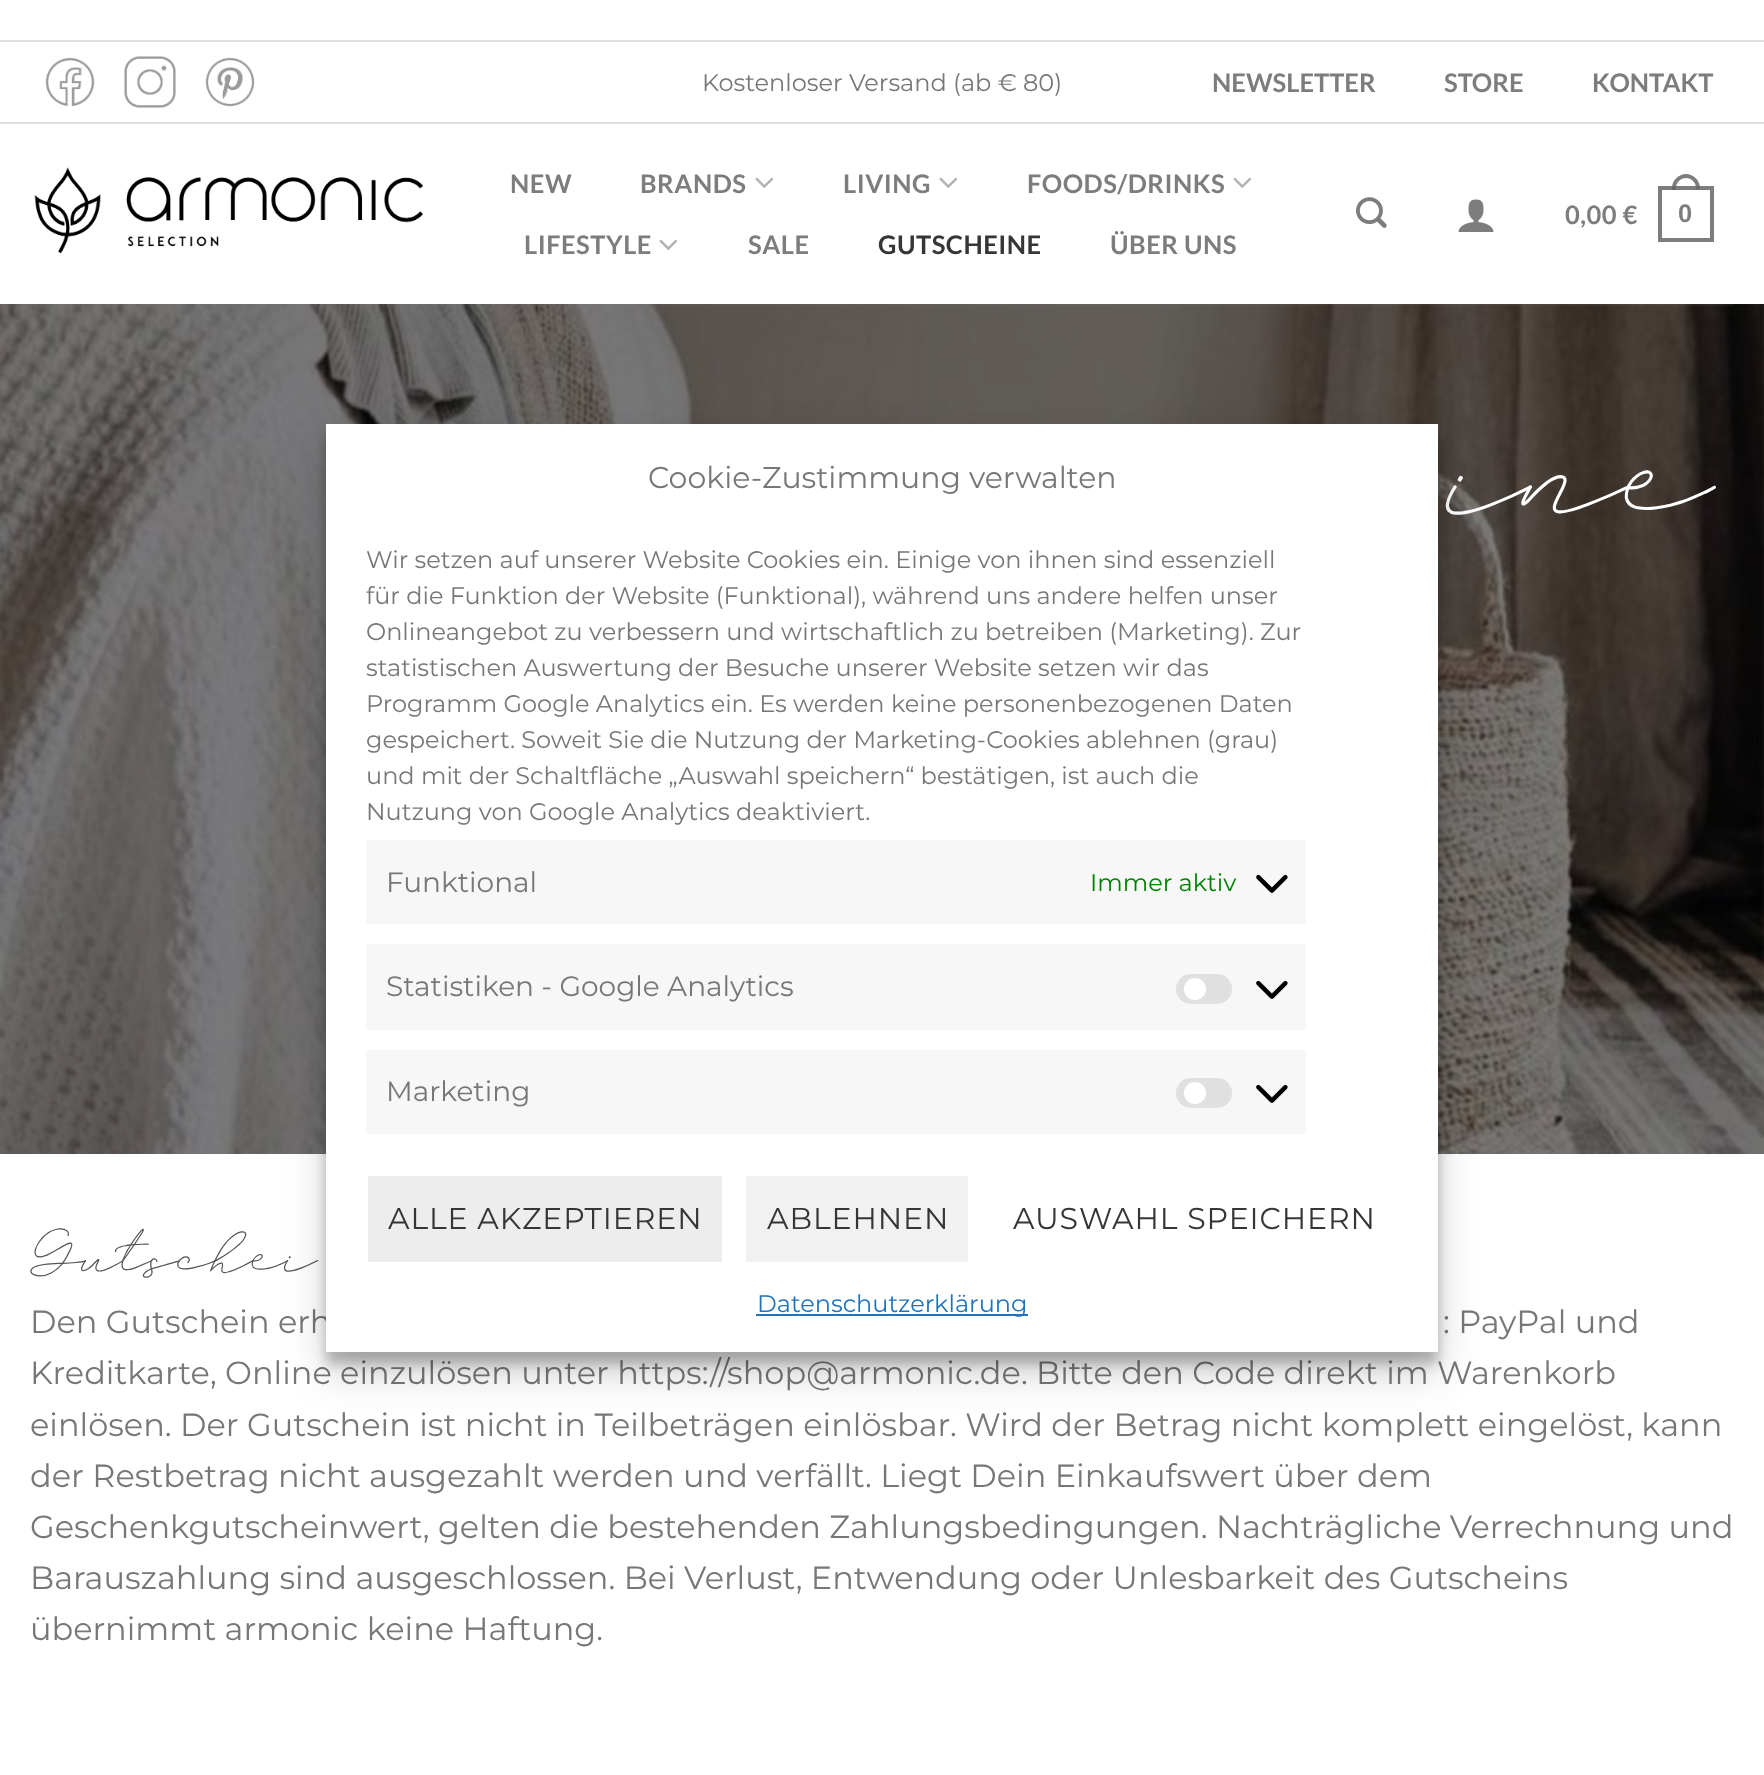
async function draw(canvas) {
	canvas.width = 1764;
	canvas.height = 1775;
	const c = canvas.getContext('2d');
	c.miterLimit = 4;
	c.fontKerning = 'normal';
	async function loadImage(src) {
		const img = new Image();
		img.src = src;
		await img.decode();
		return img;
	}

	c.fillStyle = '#fff';
	c.fillRect(0, 0, 1764, 1775);
	c.fillStyle = '#dfdfdf';
	c.fillRect(0, 40, 1764, 2);
	c.fillRect(0, 122, 1764, 2);
	c.drawImage(await loadImage('img1.png'), 45, 57, 50, 50);
	c.drawImage(await loadImage('img2.png'), 124, 56, 52, 52);
	c.drawImage(await loadImage('img3.png'), 205, 57, 50, 50);
	c.font = '24px Montserrat';
	c.fillStyle = '#777';
	c.fillText('Kostenloser Versand (ab € 80)', 702, 91);
	c.font = 'bold 25.5px Lato';
	c.fillStyle = '#7d7d7d';
	for (const [text, x, y] of [
		['NEWSLETTER', 1212, 92],
		['STORE', 1444, 92],
		['KONTAKT', 1592, 92],
	]) {
		c.fillText(text, x, y);
	}
	c.drawImage(await loadImage('img4.png'), 34, 167, 389, 87);
	c.letterSpacing = '0.5px';
	c.fillText('NEW', 510, 193);
	c.fillText('BRANDS', 640, 193);
	c.drawImage(await loadImage('img5.png'), 755, 177, 19, 11);
	c.fillText('LIVING', 843, 193);
	c.drawImage(await loadImage('img5.png'), 939, 177, 19, 11);
	c.fillText('FOODS/DRINKS', 1027, 193);
	c.drawImage(await loadImage('img5.png'), 1233, 177, 19, 11);
	c.fillText('LIFESTYLE', 524, 254);
	c.drawImage(await loadImage('img5.png'), 659, 239, 19, 11);
	c.fillText('SALE', 748, 254);
	c.fillStyle = '#363636';
	c.fillText('GUTSCHEINE', 878, 254);
	c.fillStyle = '#7d7d7d';
	c.fillText('ÜBER UNS', 1110, 254);
	c.drawImage(await loadImage('img6.png'), 1356, 197, 31, 31);
	c.drawImage(await loadImage('img7.png'), 1458, 199, 36, 33);
	c.fillText('0,00 €', 1565, 224);
	c.strokeStyle = '#7d7d7d';
	c.lineWidth = 4;
	c.strokeRect(1660, 188, 52, 52);
	c.fillStyle = '#666666d9';
	c.beginPath();
	c.moveTo(1686, 174);
	c.bezierCurveTo(1693.5, 174, 1700, 180.5, 1700, 188);
	c.lineTo(1700, 190);
	c.lineTo(1672, 190);
	c.lineTo(1672, 188);
	c.bezierCurveTo(1672, 180.5, 1678.5, 174, 1686, 174);
	c.closePath();
	c.moveTo(1686, 178);
	c.bezierCurveTo(1691.5, 178, 1696, 182.5, 1696, 188);
	c.lineTo(1696, 190);
	c.lineTo(1676, 190);
	c.lineTo(1676, 188);
	c.bezierCurveTo(1676, 182.5, 1680.5, 178, 1686, 178);
	c.closePath();
	c.fill('evenodd');
	c.font = 'bold 25.5px Liberation Sans';
	c.fillStyle = '#7d7d7d';
	c.fillText('0', 1678, 222);
	c.drawImage(await loadImage('img8.png'), 0, 304, 1764, 850);
	c.fillStyle = '#7777771a';
	c.fillRect(119, 304, 1615, 2);
	c.letterSpacing = '0px';
	c.font = '160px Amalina';
	c.fillStyle = '#fff';
	c.fillText('ine', 1453, 503);
	c.font = '64px Amalina';
	c.fillStyle = '#555';
	c.fillText('Gutschei', 30, 1267);
	c.font = '32px Montserrat';
	c.fillStyle = '#777';
	for (const [text, x, y] of [
		['Den Gutschein erh', 30, 1333],
		[': PayPal und', 1443, 1333],
		['Kreditkarte, Online einzulösen unter https://shop@armonic.de. Bitte den Code direkt im Warenkorb', 30, 1384],
		['einlösen. Der Gutschein ist nicht in Teilbeträgen einlösbar. Wird der Betrag nicht komplett eingelöst, kann', 30, 1436],
		['der Restbetrag nicht ausgezahlt werden und verfällt. Liegt Dein Einkaufswert über dem', 30, 1487],
		['Geschenkgutscheinwert, gelten die bestehenden Zahlungsbedingungen. Nachträgliche Verrechnung und', 30, 1538],
		['Barauszahlung sind ausgeschlossen. Bei Verlust, Entwendung oder Unlesbarkeit des Gutscheins', 30, 1589],
		['übernimmt armonic keine Haftung.', 30, 1640],
	]) {
		c.fillText(text, x, y);
	}
	c.fillStyle = '#0000003b';
	c.filter = 'blur(6px)';
	c.beginPath();
	c.rect(326, 436, 1112, 928);
	c.fill();
	c.filter = 'none';
	c.fillStyle = '#00000030';
	c.filter = 'blur(20px)';
	c.beginPath();
	c.rect(326, 444, 1112, 928);
	c.fill();
	c.filter = 'none';
	c.fillStyle = '#fff';
	c.fillRect(326, 424, 1112, 928);
	c.font = '30px Montserrat';
	c.fillStyle = '#777';
	c.fillText('Cookie-Zustimmung verwalten', 648, 488);
	c.font = '24px Montserrat';
	for (const [text, x, y] of [
		['Wir setzen auf unserer Website Cookies ein. Einige von ihnen sind essenziell', 366, 568],
		['für die Funktion der Website (Funktional), während uns andere helfen unser', 366, 604],
		['Onlineangebot zu verbessern und wirtschaftlich zu betreiben (Marketing). Zur', 366, 640],
		['statistischen Auswertung der Besuche unserer Website setzen wir das', 366, 676],
		['Programm Google Analytics ein. Es werden keine personenbezogenen Daten', 366, 712],
		['gespeichert. Soweit Sie die Nutzung der Marketing-Cookies ablehnen (grau)', 366, 748],
		['und mit der Schaltfläche „Auswahl speichern“ bestätigen, ist auch die', 366, 784],
		['Nutzung von Google Analytics deaktiviert.', 366, 820],
	]) {
		c.fillText(text, x, y);
	}
	c.fillStyle = '#f7f7f7';
	c.fillRect(366, 840, 940, 84);
	c.font = '28px Montserrat';
	c.fillStyle = '#777';
	c.fillText('Funktional', 386, 892);
	c.font = '24px Montserrat';
	c.fillStyle = '#008000';
	c.fillText('Immer aktiv', 1090, 891);
	c.drawImage(await loadImage('img9.png'), 1256, 874, 32, 19);
	c.fillStyle = '#f7f7f7';
	c.fillRect(366, 944, 940, 86);
	c.font = '28px Montserrat';
	c.fillStyle = '#777';
	c.fillText('Statistiken - Google Analytics', 386, 996);
	c.fillStyle = '#e0e0e0';
	c.beginPath();
	c.roundRect(1176, 974, 56, 30, 15);
	c.fill();
	c.fillStyle = '#fff';
	c.beginPath();
	c.arc(1195, 989, 11, 0, 2 * Math.PI);
	c.fill();
	c.drawImage(await loadImage('img9.png'), 1256, 980, 32, 19);
	c.fillStyle = '#f7f7f7';
	c.fillRect(366, 1050, 940, 84);
	c.fillStyle = '#777';
	c.fillText('Marketing', 386, 1101);
	c.fillStyle = '#e0e0e0';
	c.beginPath();
	c.roundRect(1176, 1078, 56, 30, 15);
	c.fill();
	c.fillStyle = '#fff';
	c.beginPath();
	c.arc(1195, 1093, 11, 0, 2 * Math.PI);
	c.fill();
	c.drawImage(await loadImage('img9.png'), 1256, 1084, 32, 19);
	c.fillStyle = '#ededed';
	c.fillRect(368, 1176, 354, 86);
	c.letterSpacing = '0.9px';
	c.font = '30px Montserrat';
	c.fillStyle = '#363636';
	c.fillText('ALLE AKZEPTIEREN', 388, 1229);
	c.fillStyle = '#f1f1f1';
	c.fillRect(746, 1176, 222, 86);
	c.fillStyle = '#363636';
	c.fillText('ABLEHNEN', 767, 1229);
	c.fillText('AUSWAHL SPEICHERN', 1013, 1229);
	c.fillStyle = '#1e73be';
	c.fillRect(756, 1314, 272, 2);
	c.letterSpacing = '0px';
	c.font = '24px Montserrat';
	c.fillText('Datenschutzerklärung', 757, 1312);
}

draw(document.querySelector('canvas'));
